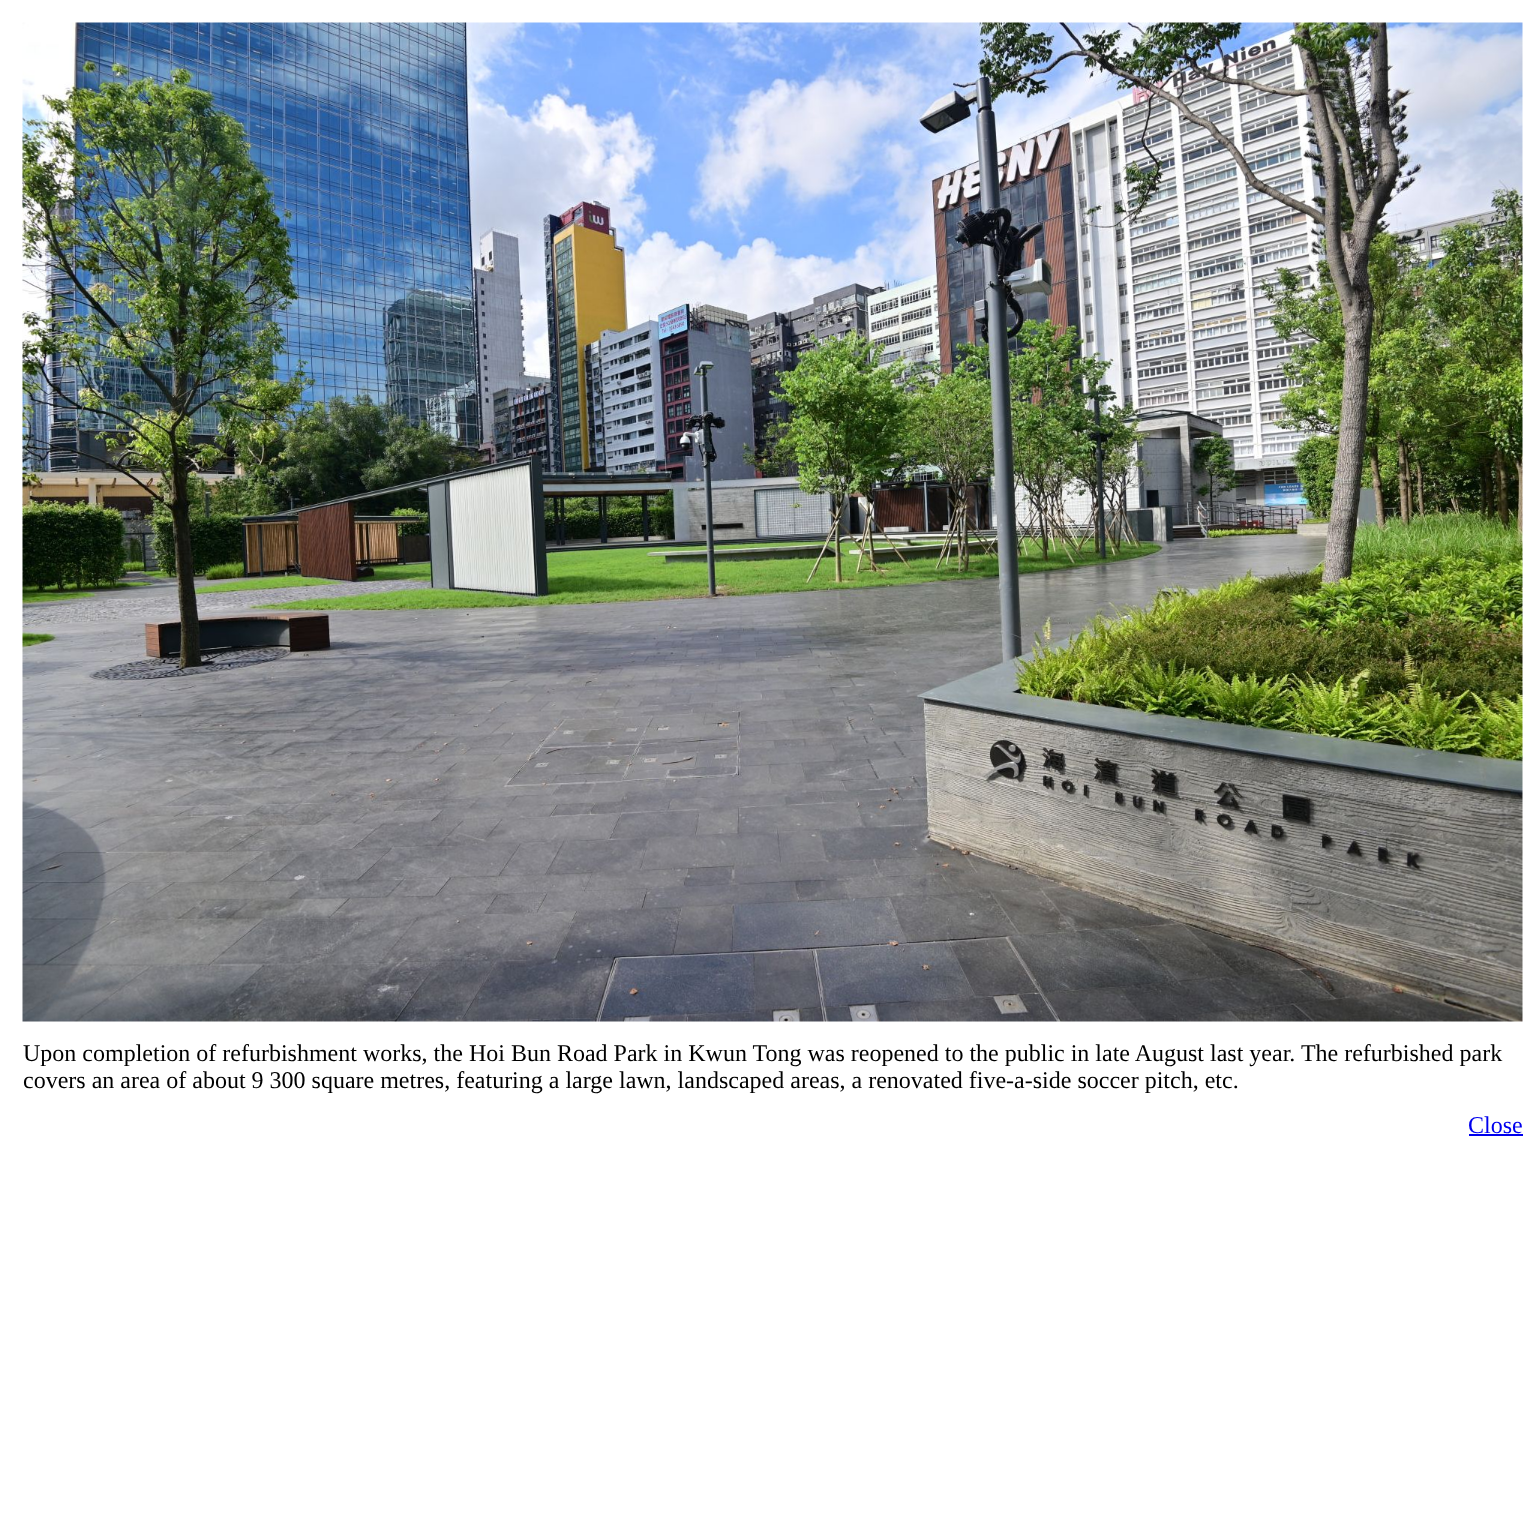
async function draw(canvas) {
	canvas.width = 1533;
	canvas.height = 1529;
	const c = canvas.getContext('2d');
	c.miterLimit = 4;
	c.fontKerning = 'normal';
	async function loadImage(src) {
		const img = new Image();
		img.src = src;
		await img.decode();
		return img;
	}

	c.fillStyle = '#fff';
	c.fillRect(0, 0, 1533, 1529);
	c.drawImage(await loadImage('img1.png'), 22, 22, 1501, 1000);
	c.font = '24px Liberation Serif';
	c.fillStyle = '#000';
	c.fillText('Upon completion of refurbishment works, the Hoi Bun Road Park in Kwun Tong was reopened to the public in late August last year. The refurbished park', 23, 1061);
	c.fillText('covers an area of about 9 300 square metres, featuring a large lawn, landscaped areas, a renovated five-a-side soccer pitch, etc.', 23, 1088);
	c.fillStyle = '#00e';
	c.fillText('Close', 1468, 1133);
	c.fillRect(1469, 1134, 54, 2);
}

draw(document.querySelector('canvas'));
